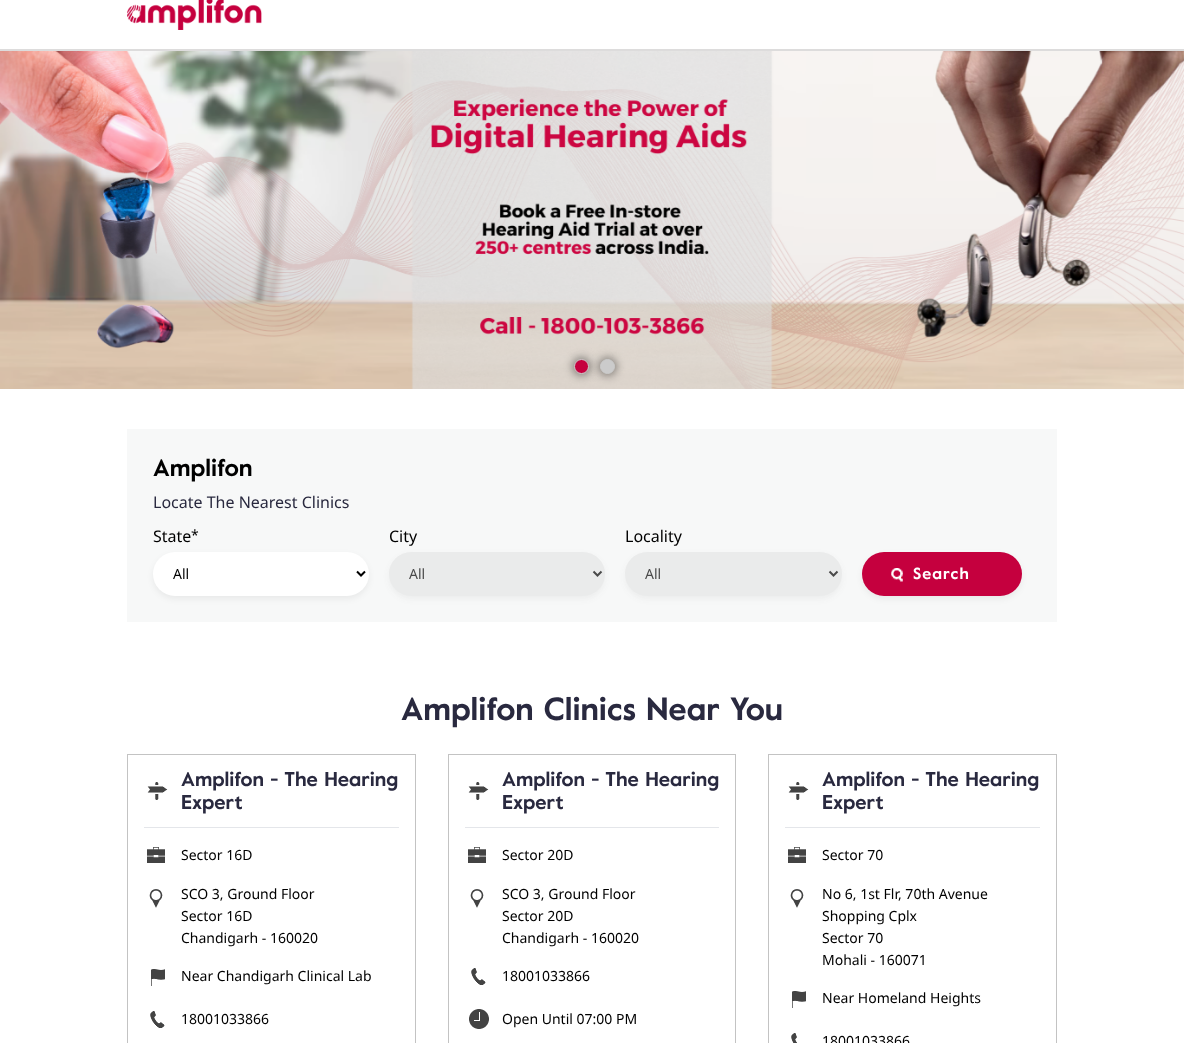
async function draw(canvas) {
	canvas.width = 1184;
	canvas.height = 1043;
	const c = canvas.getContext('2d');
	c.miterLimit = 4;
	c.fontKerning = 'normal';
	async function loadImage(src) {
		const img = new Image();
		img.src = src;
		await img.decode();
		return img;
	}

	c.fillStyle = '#fff';
	c.fillRect(0, 0, 1184, 1043);
	c.save();
	c.beginPath();
	c.rect(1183, 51, 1, 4);
	c.clip();
	c.fillStyle = '#00000033';
	c.filter = 'blur(2px)';
	c.beginPath();
	c.rect(0, -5, 1184, 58);
	c.fill();
	c.filter = 'none';
	c.restore();
	c.fillStyle = '#dddcdc';
	c.fillRect(0, 49, 1184, 2);
	c.drawImage(await loadImage('img1.png'), 127, 0, 135, 30);
	c.drawImage(await loadImage('img2.png'), 0, 51, 1184, 338);
	c.fillStyle = '#00000066';
	c.filter = 'blur(4.5px)';
	c.beginPath();
	c.roundRect(572, 357, 19, 19, 9.5);
	c.fill();
	c.filter = 'none';
	c.fillStyle = '#c5003e';
	c.beginPath();
	c.arc(581.5, 366.5, 7, 0, 2 * Math.PI);
	c.fill();
	c.strokeStyle = '#cbcbcb';
	c.stroke();
	c.fillStyle = '#00000066';
	c.filter = 'blur(4.5px)';
	c.beginPath();
	c.roundRect(598, 357, 19, 19, 9.5);
	c.fill();
	c.filter = 'none';
	c.fillStyle = '#cbcbcb';
	c.beginPath();
	c.arc(607.5, 366.5, 7, 0, 2 * Math.PI);
	c.fill();
	c.stroke();
	c.fillStyle = '#f7f8f8';
	c.fillRect(127, 429, 930, 193);
	c.font = 'bold 24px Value';
	c.fillStyle = '#000';
	c.fillText('Amplifon', 153, 476);
	c.font = '16px Noto Sans';
	c.fillStyle = '#29293f';
	c.fillText('Locate The Nearest Clinics', 153, 508);
	c.fillStyle = '#000';
	c.fillText('State', 153, 542);
	c.font = '14px Noto Sans';
	c.fillText('*', 191, 540);
	c.fillStyle = '#0000000f';
	c.filter = 'blur(3px)';
	c.beginPath();
	c.roundRect(153, 555, 216, 44, 22);
	c.fill();
	c.filter = 'none';
	c.fillStyle = '#fff';
	c.beginPath();
	c.roundRect(153, 552, 216, 44, 22);
	c.fill();
	c.beginPath();
	c.moveTo(357, 571.5);
	c.lineTo(361, 575.5);
	c.lineTo(365, 571.5);
	c.strokeStyle = '#000';
	c.lineWidth = 2;
	c.stroke();
	c.fillStyle = '#000';
	c.fillText('All', 173, 579);
	c.font = '16px Noto Sans';
	c.fillText('City', 389, 542);
	c.fillStyle = '#4a4a4a0f';
	c.filter = 'blur(3px)';
	c.beginPath();
	c.roundRect(389, 555, 216, 44, 22);
	c.fill();
	c.filter = 'none';
	c.fillStyle = '#eaebeb';
	c.beginPath();
	c.roundRect(389, 552, 216, 44, 22);
	c.fill();
	c.beginPath();
	c.moveTo(593.5, 571.5);
	c.lineTo(597.5, 575.5);
	c.lineTo(601.5, 571.5);
	c.strokeStyle = '#4a4a4a';
	c.stroke();
	c.font = '14px Noto Sans';
	c.fillStyle = '#4a4a4a';
	c.fillText('All', 409, 579);
	c.font = '16px Noto Sans';
	c.fillStyle = '#000';
	c.fillText('Locality', 625, 542);
	c.fillStyle = '#4a4a4a0f';
	c.filter = 'blur(3px)';
	c.beginPath();
	c.roundRect(625, 555, 217, 44, 22);
	c.fill();
	c.filter = 'none';
	c.fillStyle = '#eaebeb';
	c.beginPath();
	c.roundRect(625, 552, 217, 44, 22);
	c.fill();
	c.beginPath();
	c.moveTo(829.5, 571.5);
	c.lineTo(833.5, 575.5);
	c.lineTo(837.5, 571.5);
	c.stroke();
	c.font = '14px Noto Sans';
	c.fillStyle = '#4a4a4a';
	c.fillText('All', 645, 579);
	c.fillStyle = '#0000000f';
	c.filter = 'blur(3px)';
	c.beginPath();
	c.roundRect(862, 555, 160, 44, 22);
	c.fill();
	c.filter = 'none';
	c.fillStyle = '#c5003e';
	c.beginPath();
	c.roundRect(862, 552, 160, 44, 22);
	c.fill();
	c.drawImage(await loadImage('img3.png'), 891, 568, 12, 14);
	c.letterSpacing = '1px';
	c.font = 'bold 16px Value';
	c.fillStyle = '#fff';
	c.fillText('Search', 913, 579);
	c.letterSpacing = '0px';
	c.font = 'bold 32px Value';
	c.fillStyle = '#29293f';
	c.fillText('Amplifon Clinics Near You', 401, 720);
	c.strokeStyle = '#c3c3c3';
	c.lineWidth = 1;
	c.strokeRect(127.5, 754.5, 288, 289);
	c.fillStyle = '#e4e6ea';
	c.fillRect(144, 827, 255, 1);
	c.drawImage(await loadImage('img4.png'), 147, 782, 21, 18);
	c.font = 'bold 20px Value';
	c.fillStyle = '#29293f';
	c.fillText('Amplifon - The Hearing', 181, 786);
	c.fillText('Expert', 181, 809);
	c.drawImage(await loadImage('img5.png'), 147, 847, 18, 16);
	c.font = '14px Noto Sans';
	c.fillStyle = '#000';
	c.fillText('Sector 16D', 181, 860);
	c.drawImage(await loadImage('img6.png'), 149, 889, 14, 19);
	for (const [text, x, y] of [
		['SCO 3, Ground Floor', 181, 899],
		['Sector 16D', 181, 921],
		['Chandigarh - 160020', 181, 943],
	]) {
		c.fillText(text, x, y);
	}
	c.drawImage(await loadImage('img7.png'), 151, 969, 14, 17);
	c.fillText('Near Chandigarh Clinical Lab', 181, 981);
	c.drawImage(await loadImage('img8.png'), 150, 1011, 15, 17);
	c.fillText('18001033866', 181, 1024);
	c.strokeRect(448.5, 754.5, 287, 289);
	c.fillStyle = '#e4e6ea';
	c.fillRect(465, 827, 254, 1);
	c.drawImage(await loadImage('img4.png'), 468, 782, 21, 18);
	c.font = 'bold 20px Value';
	c.fillStyle = '#29293f';
	c.fillText('Amplifon - The Hearing', 502, 786);
	c.fillText('Expert', 502, 809);
	c.drawImage(await loadImage('img5.png'), 468, 847, 18, 16);
	c.font = '14px Noto Sans';
	c.fillStyle = '#000';
	c.fillText('Sector 20D', 502, 860);
	c.drawImage(await loadImage('img6.png'), 470, 889, 14, 19);
	for (const [text, x, y] of [
		['SCO 3, Ground Floor', 502, 899],
		['Sector 20D', 502, 921],
		['Chandigarh - 160020', 502, 943],
	]) {
		c.fillText(text, x, y);
	}
	c.drawImage(await loadImage('img8.png'), 471, 968, 15, 17);
	c.fillText('18001033866', 502, 981);
	c.drawImage(await loadImage('img9.png'), 469, 1009, 20, 20);
	c.fillText('Open Until 07:00 PM', 502, 1024);
	c.strokeRect(768.5, 754.5, 288, 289);
	c.fillStyle = '#e4e6ea';
	c.fillRect(785, 827, 255, 1);
	c.drawImage(await loadImage('img4.png'), 788, 782, 21, 18);
	c.font = 'bold 20px Value';
	c.fillStyle = '#29293f';
	c.fillText('Amplifon - The Hearing', 822, 786);
	c.fillText('Expert', 822, 809);
	c.drawImage(await loadImage('img5.png'), 788, 847, 18, 16);
	c.font = '14px Noto Sans';
	c.fillStyle = '#000';
	c.fillText('Sector 70', 822, 860);
	c.drawImage(await loadImage('img6.png'), 790, 889, 14, 19);
	for (const [text, x, y] of [
		['No 6, 1st Flr, 70th Avenue', 822, 899],
		['Shopping Cplx', 822, 921],
		['Sector 70', 822, 943],
		['Mohali - 160071', 822, 965],
	]) {
		c.fillText(text, x, y);
	}
	c.drawImage(await loadImage('img7.png'), 792, 991, 14, 17);
	c.fillText('Near Homeland Heights', 822, 1003);
	c.drawImage(await loadImage('img10.png'), 791, 1033, 6, 10);
	c.fillText('18001033866', 822, 1046);
}

draw(document.querySelector('canvas'));
